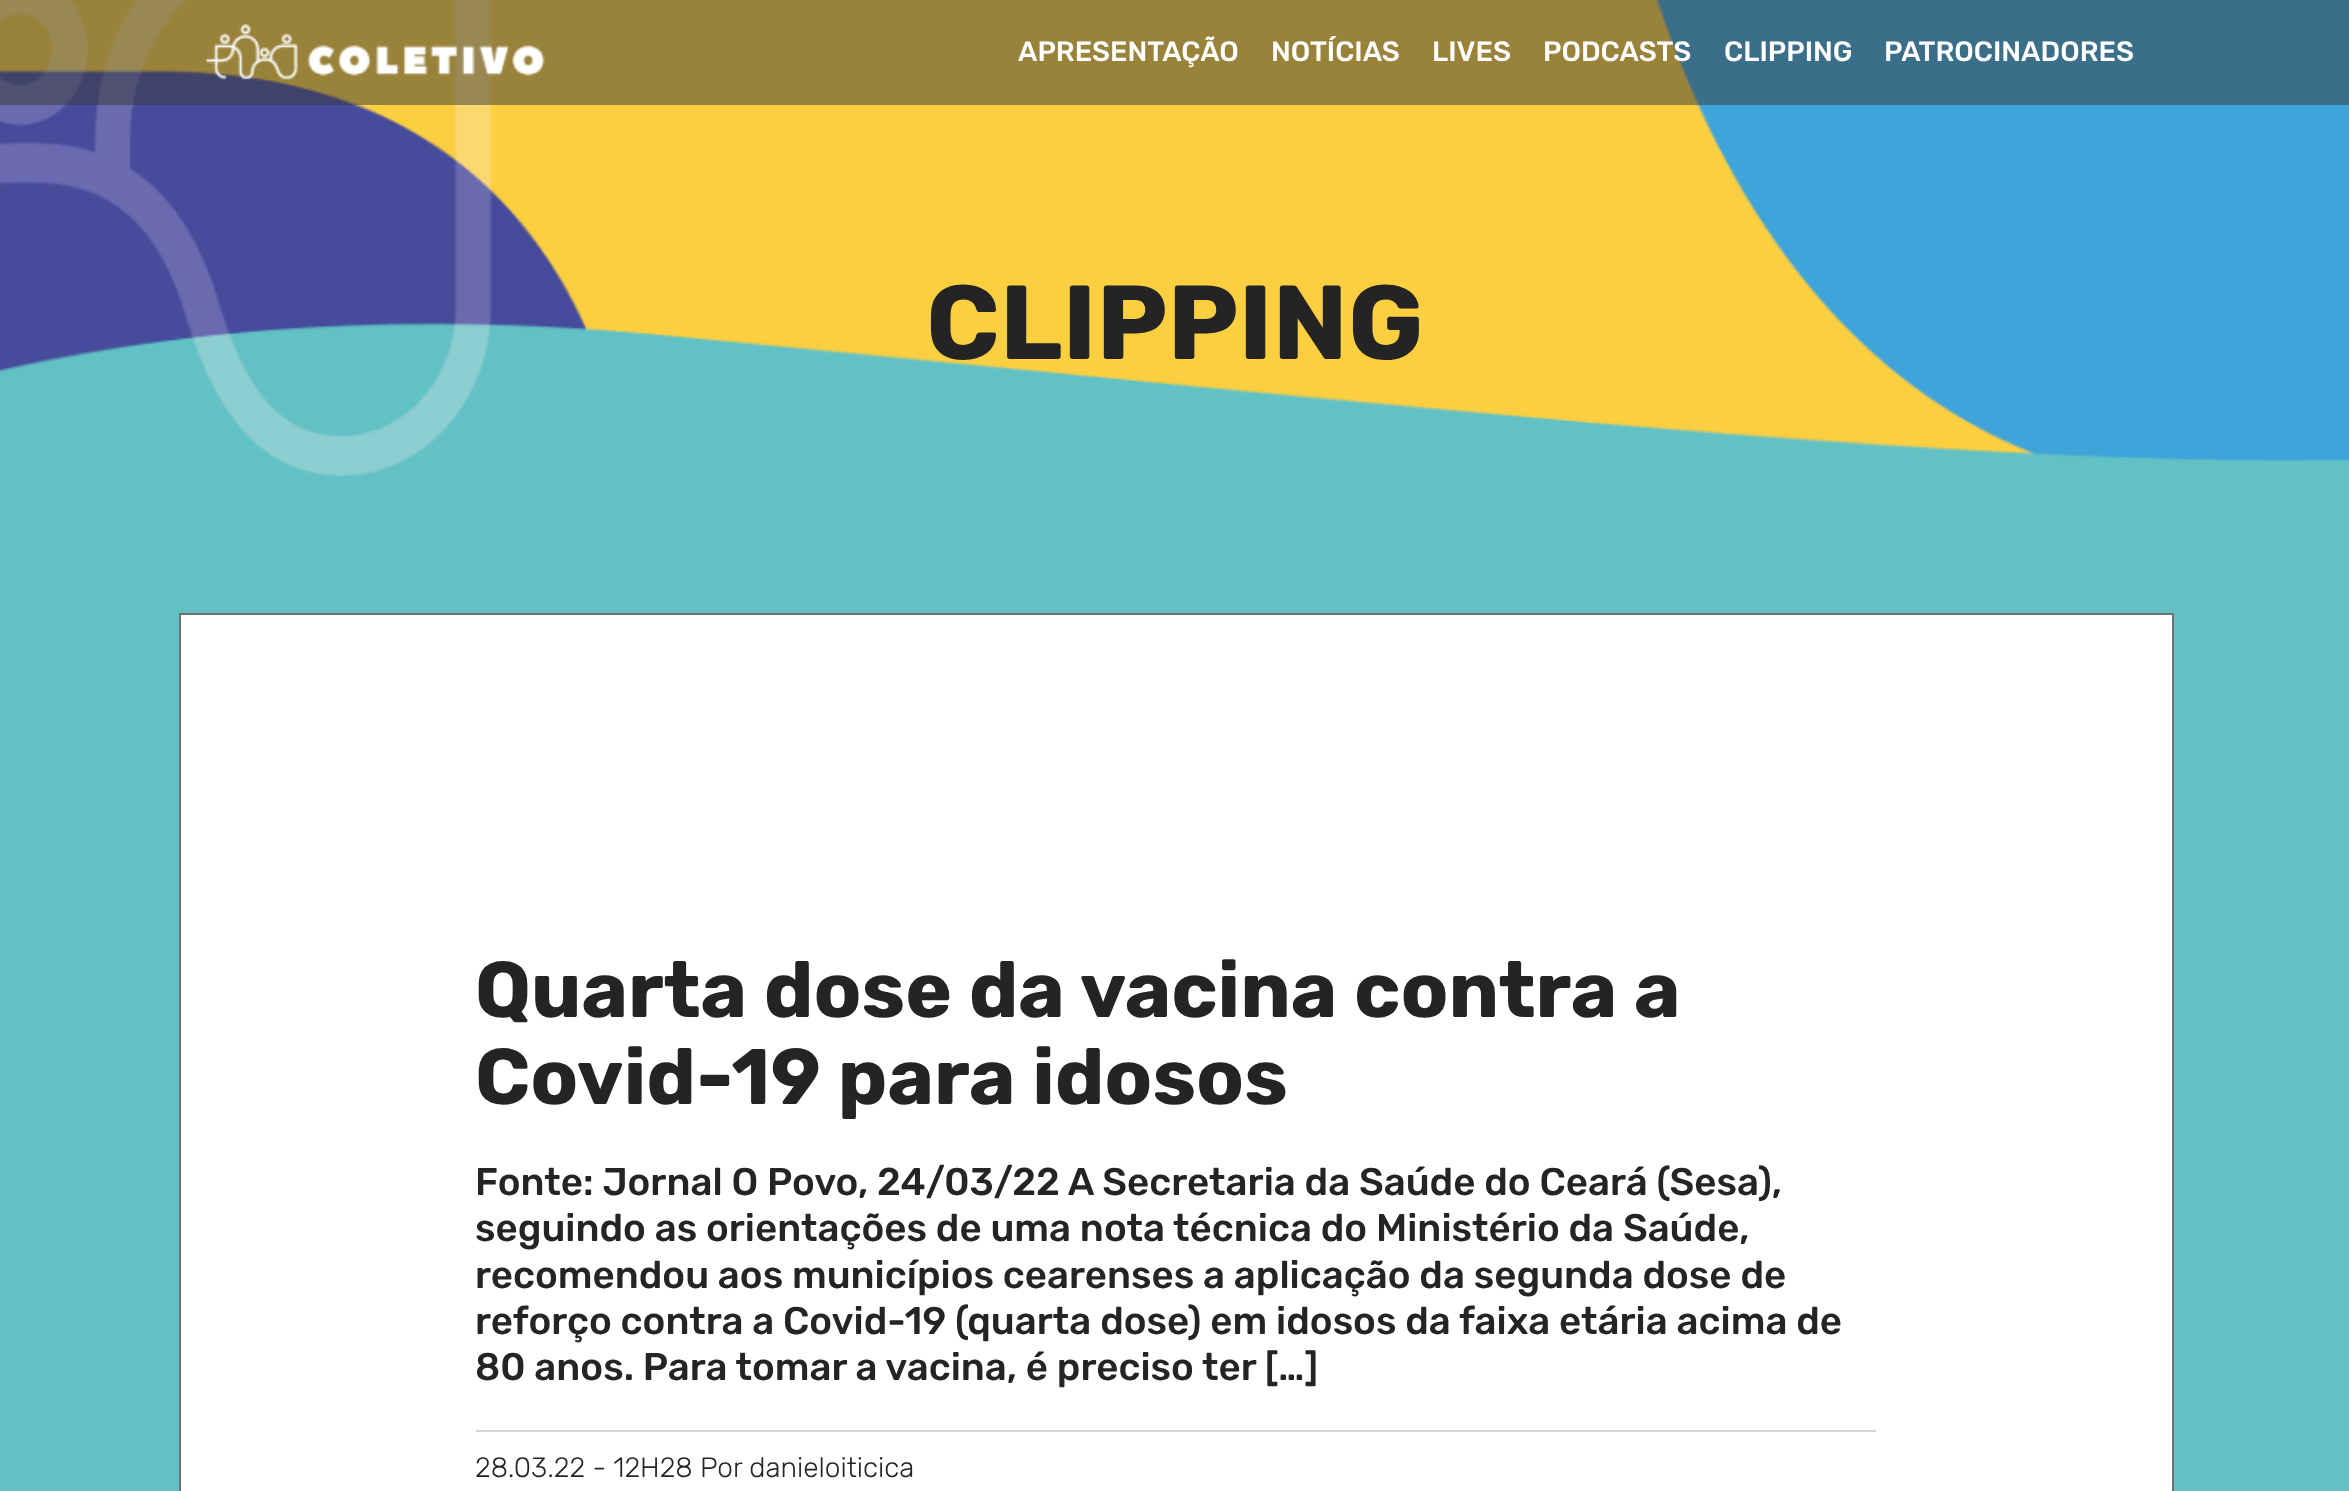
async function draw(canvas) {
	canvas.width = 2349;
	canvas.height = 1491;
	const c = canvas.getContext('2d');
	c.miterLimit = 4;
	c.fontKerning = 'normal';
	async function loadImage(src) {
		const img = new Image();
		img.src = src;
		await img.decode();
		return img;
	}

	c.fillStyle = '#62c1c4';
	c.fillRect(0, 0, 2349, 1491);
	c.drawImage(await loadImage('img2.png'), 0, 0, 2349, 477);
	c.fillStyle = '#37373780';
	c.fillRect(0, 0, 2349, 105);
	c.drawImage(await loadImage('img1.png'), 205, 24, 340, 56);
	c.font = '500 28px Rubik';
	c.fillStyle = '#fff';
	for (const [text, x, y] of [
		['APRESENTAÇÃO', 1018, 61],
		['NOTÍCIAS', 1271, 61],
		['LIVES', 1432, 61],
		['PODCASTS', 1543, 61],
		['CLIPPING', 1724, 61],
		['PATROCINADORES', 1884, 61],
	]) {
		c.fillText(text, x, y);
	}
	c.font = 'bold 105px Rubik';
	c.fillStyle = '#242424';
	c.fillText('CLIPPING', 926, 359);
	c.fillStyle = '#fff';
	c.beginPath();
	c.rect(180, 614, 1993, 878);
	c.fill();
	c.strokeStyle = '#707070';
	c.lineWidth = 2;
	c.stroke();
	c.font = 'bold 78.75px Rubik';
	c.fillStyle = '#242424';
	c.fillText('Quarta dose da vacina contra a', 475, 1017);
	c.fillText('Covid-19 para idosos', 475, 1104);
	c.font = '500 38.5px Rubik';
	for (const [text, x, y] of [
		['Fonte: Jornal O Povo, 24/03/22 A Secretaria da Saúde do Ceará (Sesa),', 475, 1195],
		['seguindo as orientações de uma nota técnica do Ministério da Saúde,', 475, 1241],
		['recomendou aos municípios cearenses a aplicação da segunda dose de', 475, 1288],
		['reforço contra a Covid-19 (quarta dose) em idosos da faixa etária acima de', 475, 1334],
		['80 anos. Para tomar a vacina, é preciso ter […]', 475, 1380],
	]) {
		c.fillText(text, x, y);
	}
	c.fillStyle = '#d6d6d6';
	c.fillRect(476, 1430, 1400, 2);
	c.font = '300 28px Rubik';
	c.fillStyle = '#242424';
	c.fillText('28.03.22 - 12H28 Por danieloiticica', 475, 1477);
}

draw(document.querySelector('canvas'));
